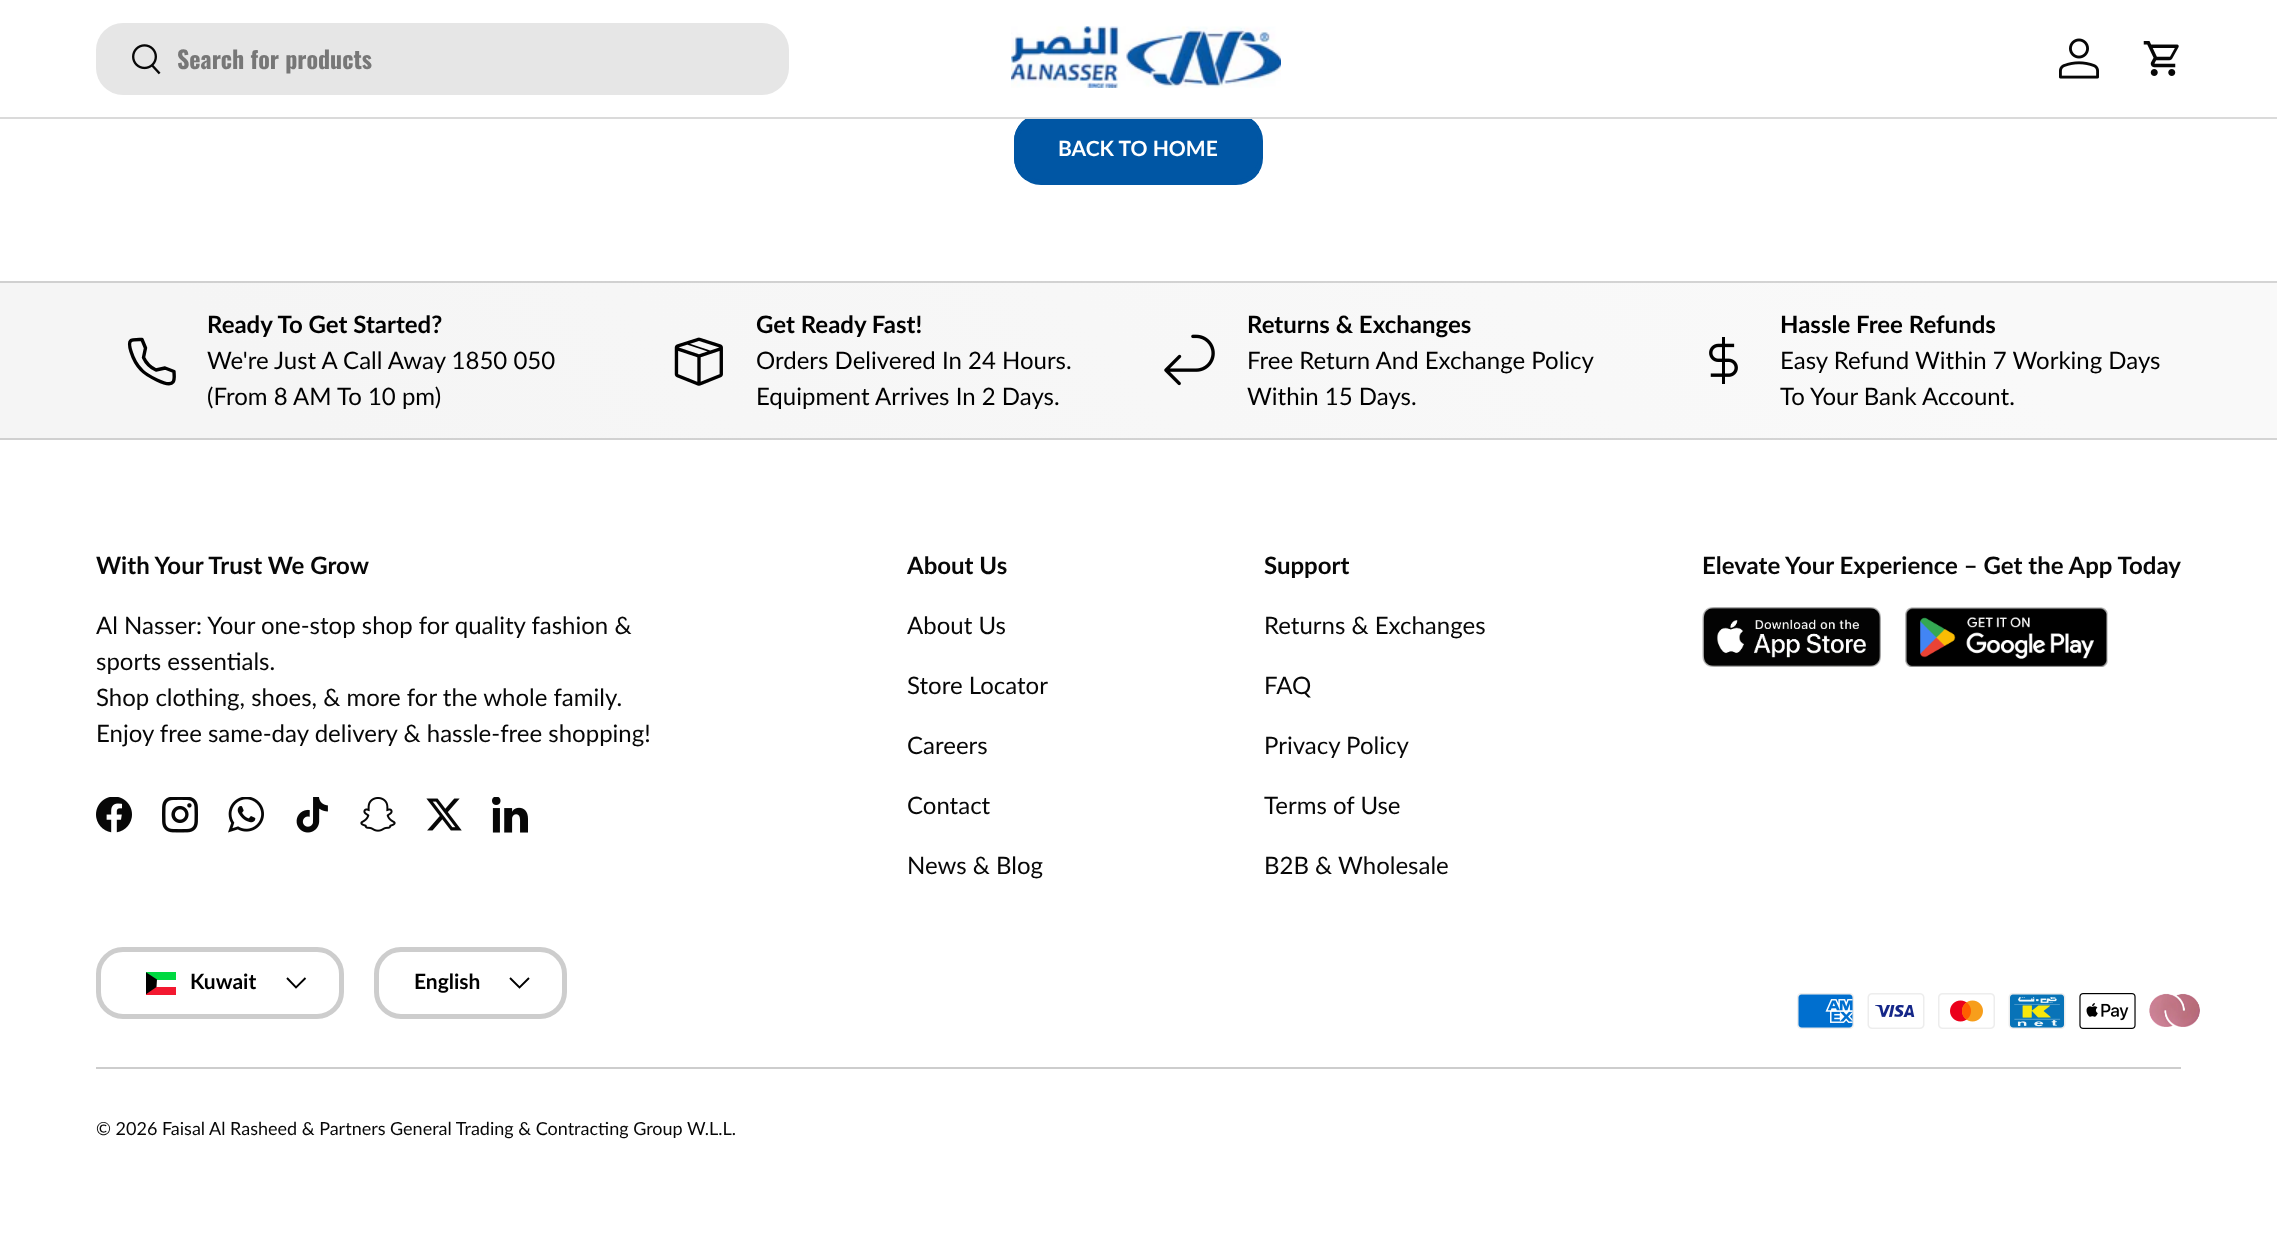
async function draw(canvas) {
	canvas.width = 2277;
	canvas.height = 1238;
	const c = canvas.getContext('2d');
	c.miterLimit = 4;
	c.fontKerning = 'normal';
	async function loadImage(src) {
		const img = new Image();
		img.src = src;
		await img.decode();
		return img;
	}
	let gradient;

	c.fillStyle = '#fff';
	c.fillRect(0, 0, 2277, 1238);
	c.save();
	c.beginPath();
	c.roundRect(1014, 114, 249, 71, 27);
	c.clip();
	gradient = c.createLinearGradient(552, 63, 1245, 236);
	gradient.addColorStop(0.6, '#2977bf');
	gradient.addColorStop(0.6, '#0056a4');
	gradient.addColorStop(1, '#0056a4');
	c.fillStyle = gradient;
	c.fillRect(1014, 119, 245, 61);
	c.restore();
	c.beginPath();
	c.roundRect(1016.5, 116.5, 244, 66, 24.5);
	c.strokeStyle = '#0056a4';
	c.lineWidth = 5;
	c.stroke();
	c.fillRect(1028, 114, 221, 3);
	c.fillStyle = '#dadada';
	c.fillRect(0, 117, 2277, 2);
	c.fillStyle = '#e6e6e6';
	c.beginPath();
	c.roundRect(96, 23, 693, 72, 27);
	c.fill();
	c.drawImage(await loadImage('img1.png'), 132, 44, 29, 31);
	c.font = 'bold 24px Oswald';
	c.fillStyle = '#777';
	c.fillText('Search for products', 177, 69);
	c.drawImage(await loadImage('img2.png'), 1011, 26, 270, 62);
	c.drawImage(await loadImage('img3.png'), 2059, 38, 40, 41);
	c.drawImage(await loadImage('img4.png'), 2143, 41, 36, 35);
	c.font = 'bold 21px Lato';
	c.fillStyle = '#fff';
	c.fillText('BACK TO HOME', 1058, 156);
	gradient = c.createLinearGradient(510, 811, 1767, -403);
	gradient.addColorStop(0.13, '#d0d0d0');
	gradient.addColorStop(0.86, '#d4d4d4');
	c.fillStyle = gradient;
	c.fillRect(0, 281, 2277, 1);
	gradient = c.createLinearGradient(510, 967, 1767, -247);
	gradient.addColorStop(0.13, '#f5f5f5');
	gradient.addColorStop(0.86, '#f9f9f9');
	c.fillStyle = gradient;
	c.fillRect(0, 283, 2277, 155);
	gradient = c.createLinearGradient(510, 967, 1767, -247);
	gradient.addColorStop(0.13, '#d0d0d0');
	gradient.addColorStop(0.86, '#d4d4d4');
	c.fillStyle = gradient;
	c.fillRect(0, 282, 2277, 1);
	gradient = c.createLinearGradient(510, 1123, 1767, -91);
	gradient.addColorStop(0.13, '#d0d0d0');
	gradient.addColorStop(0.86, '#d4d4d4');
	c.fillStyle = gradient;
	c.fillRect(0, 438, 2277, 2);
	c.beginPath();
	c.moveTo(165, 368);
	c.lineTo(156, 370);
	c.bezierCurveTo(150.5, 367.5, 146, 363, 143.5, 357.5);
	c.lineTo(145.5, 348);
	c.lineTo(142, 339.5);
	c.bezierCurveTo(131, 339.5, 127, 338.5, 131, 351.5);
	c.bezierCurveTo(133, 358, 136.5, 365, 141.5, 370);
	c.bezierCurveTo(145, 374, 168.5, 388.5, 173, 382);
	c.bezierCurveTo(175, 379.5, 174, 374.5, 174, 371.5);
	c.closePath();
	c.strokeStyle = '#000';
	c.lineWidth = 3.4;
	c.lineCap = 'round';
	c.lineJoin = 'round';
	c.stroke();
	c.font = 'bold 24px Lato';
	c.fillStyle = '#000';
	c.fillText('Ready To Get Started?', 207, 333);
	c.font = '24px Lato';
	c.fillText('We\'re Just A Call Away 1850 050', 207, 369);
	c.fillText('(From 8 AM To 10 pm)', 207, 405);
	c.drawImage(await loadImage('img5.png'), 674, 337, 49, 49);
	c.font = 'bold 24px Lato';
	c.fillText('Get Ready Fast!', 756, 333);
	c.font = '24px Lato';
	c.fillText('Orders Delivered In 24 Hours.', 756, 369);
	c.fillText('Equipment Arrives In 2 Days.', 756, 405);
	c.drawImage(await loadImage('img6.png'), 1164, 334, 51, 52);
	c.font = 'bold 24px Lato';
	c.fillText('Returns & Exchanges', 1247, 333);
	c.font = '24px Lato';
	c.fillText('Free Return And Exchange Policy', 1247, 369);
	c.fillText('Within 15 Days.', 1247, 405);
	c.drawImage(await loadImage('img7.png'), 1709, 337, 29, 47);
	c.font = 'bold 24px Lato';
	c.fillText('Hassle Free Refunds', 1780, 333);
	c.font = '24px Lato';
	c.fillText('Easy Refund Within 7 Working Days', 1780, 369);
	c.fillText('To Your Bank Account.', 1780, 405);
	c.font = 'bold 24px Lato';
	c.fillStyle = '#070707';
	c.fillText('With Your Trust We Grow', 96, 574);
	c.font = '24px Lato';
	for (const [text, x, y] of [
		['Al Nasser: Your one-stop shop for quality fashion &', 96, 634],
		['sports essentials.', 96, 670],
		['Shop clothing, shoes, & more for the whole family.', 96, 706],
		['Enjoy free same-day delivery & hassle-free shopping!', 96, 742],
	]) {
		c.fillText(text, x, y);
	}
	c.drawImage(await loadImage('img8.png'), 96, 797, 36, 36);
	c.drawImage(await loadImage('img9.png'), 162, 797, 36, 36);
	c.drawImage(await loadImage('img10.png'), 228, 797, 36, 36);
	c.drawImage(await loadImage('img11.png'), 296, 797, 32, 36);
	c.drawImage(await loadImage('img12.png'), 360, 797, 36, 35);
	c.drawImage(await loadImage('img13.png'), 426, 798, 36, 33);
	c.drawImage(await loadImage('img14.png'), 492, 797, 36, 36);
	c.font = 'bold 24px Lato';
	c.fillText('About Us', 907, 574);
	c.font = '24px Lato';
	for (const [text, x, y] of [
		['About Us', 907, 634],
		['Store Locator', 907, 694],
		['Careers', 907, 754],
		['Contact', 907, 814],
		['News & Blog', 907, 874],
	]) {
		c.fillText(text, x, y);
	}
	c.font = 'bold 24px Lato';
	c.fillText('Support', 1264, 574);
	c.font = '24px Lato';
	for (const [text, x, y] of [
		['Returns & Exchanges', 1264, 634],
		['FAQ', 1264, 694],
		['Privacy Policy', 1264, 754],
		['Terms of Use', 1264, 814],
		['B2B & Wholesale', 1264, 874],
	]) {
		c.fillText(text, x, y);
	}
	c.font = 'bold 24px Lato';
	c.fillText('Elevate Your Experience – Get the App Today', 1702, 574);
	c.drawImage(await loadImage('img15.png'), 1702, 607, 179, 60);
	c.drawImage(await loadImage('img16.png'), 1905, 607, 203, 60);
	c.beginPath();
	c.roundRect(98.5, 949.5, 243, 67, 24.5);
	c.strokeStyle = '#cdcdcd';
	c.lineWidth = 5;
	c.lineJoin = 'miter';
	c.stroke();
	c.fillStyle = '#00d941';
	c.fillRect(146, 972, 30, 8);
	c.fillStyle = '#f31830';
	c.fillRect(146, 987, 30, 8);
	c.save();
	c.beginPath();
	c.rect(146, 972, 30, 23);
	c.clip();
	c.fillStyle = '#000';
	c.beginPath();
	c.moveTo(145.5, 972);
	c.lineTo(145.5, 994.5);
	c.lineTo(156.5, 987);
	c.lineTo(157, 979.5);
	c.closePath();
	c.fill('evenodd');
	c.restore();
	c.font = 'bold 21px Lato';
	c.fillStyle = '#000';
	c.fillText('Kuwait', 190, 989);
	c.beginPath();
	c.moveTo(305.5, 978);
	c.lineTo(296, 987.5);
	c.lineTo(287, 978);
	c.strokeStyle = '#000';
	c.lineWidth = 1.9;
	c.lineCap = 'butt';
	c.stroke();
	c.beginPath();
	c.roundRect(376.5, 949.5, 188, 67, 24.5);
	c.strokeStyle = '#cdcdcd';
	c.lineWidth = 5;
	c.stroke();
	c.fillText('English', 414, 989);
	c.beginPath();
	c.moveTo(529, 978);
	c.lineTo(519.5, 987.5);
	c.lineTo(510, 978);
	c.strokeStyle = '#000';
	c.lineWidth = 1.9;
	c.stroke();
	c.drawImage(await loadImage('img17.png'), 1797, 993, 57, 36);
	c.drawImage(await loadImage('img18.png'), 1867, 993, 58, 36);
	c.drawImage(await loadImage('img19.png'), 1938, 993, 57, 36);
	c.drawImage(await loadImage('img20.png'), 2008, 993, 58, 36);
	c.drawImage(await loadImage('img21.png'), 2079, 993, 57, 36);
	c.drawImage(await loadImage('img22.png'), 2149, 993, 51, 34);
	c.fillStyle = '#cdcdcd';
	c.fillRect(96, 1067, 2085, 2);
	c.font = '18px Lato';
	c.fillStyle = '#070707';
	c.fillText('© 2026 Faisal Al Rasheed & Partners General Trading & Contracting Group W.L.L.', 96, 1135);
}

draw(document.querySelector('canvas'));
